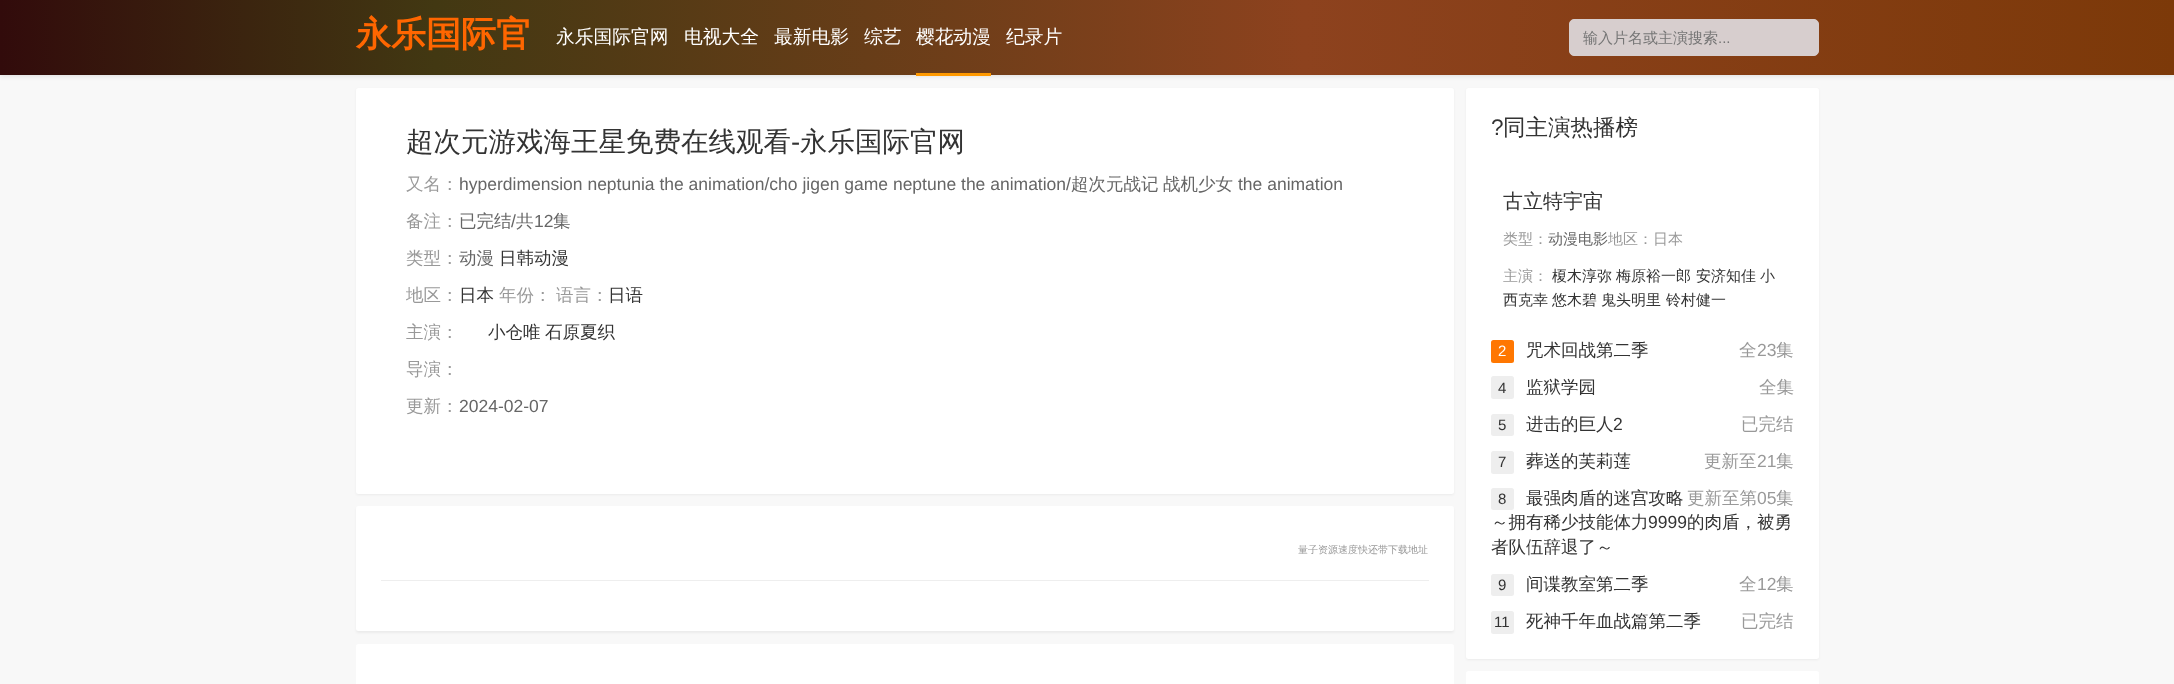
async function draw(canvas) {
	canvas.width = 2174;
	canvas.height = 684;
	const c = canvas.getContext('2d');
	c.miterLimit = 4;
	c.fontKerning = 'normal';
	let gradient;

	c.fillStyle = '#f8f8f8';
	c.fillRect(0, 0, 2174, 684);
	c.fillStyle = '#0000001a';
	c.filter = 'blur(2.5px)';
	c.beginPath();
	c.rect(0, 1, 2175, 75);
	c.fill();
	c.filter = 'none';
	gradient = c.createLinearGradient(0, 38, 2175, 37);
	gradient.addColorStop(0, '#320b0b');
	gradient.addColorStop(0.2, '#423812');
	gradient.addColorStop(0.6, '#8d421e');
	gradient.addColorStop(1, '#7c3909');
	c.fillStyle = gradient;
	c.fillRect(0, 0, 2174, 75);
	c.font = 'bold 35px WenQuanYi Zen Hei';
	c.fillStyle = '#f60';
	c.fillText('永乐国际官', 356, 46);
	c.font = '500 18.75px WenQuanYi Zen Hei';
	c.fillStyle = '#fff';
	for (const [text, x, y] of [
		['永乐国际官网', 556, 43],
		['电视大全', 684, 43],
		['最新电影', 774, 43],
		['综艺', 864, 43],
	]) {
		c.fillText(text, x, y);
	}
	c.fillStyle = '#f90';
	c.fillRect(916, 73, 75, 3);
	c.fillStyle = '#fff';
	c.fillText('樱花动漫', 916, 43);
	c.fillText('纪录片', 1006, 43);
	c.fillStyle = '#d7cece';
	c.beginPath();
	c.roundRect(1569.5, 19.5, 249, 36, 4.5);
	c.fill();
	c.strokeStyle = '#d7cece';
	c.stroke();
	c.save();
	c.beginPath();
	c.rect(1583, 28, 222, 21);
	c.clip();
	c.font = '500 15px WenQuanYi Zen Hei';
	c.fillStyle = '#757575';
	c.fillText('输入片名或主演搜索', 1583, 43);
	c.restore();
	c.font = '15px Liberation Sans';
	c.fillStyle = '#757575';
	c.fillText('...', 1718, 43);
	c.fillStyle = '#0000000d';
	c.filter = 'blur(1px)';
	c.beginPath();
	c.roundRect(356, 89, 1098, 406, 2.5);
	c.fill();
	c.filter = 'none';
	c.fillStyle = '#fff';
	c.beginPath();
	c.roundRect(356, 88, 1098, 406, 2.5);
	c.fill();
	c.font = '500 27.5px WenQuanYi Zen Hei';
	c.fillStyle = '#333';
	c.fillText('超次元游戏海王星免费在线观看', 406, 151);
	c.font = '27.5px Liberation Sans';
	c.fillText('-', 791, 151);
	c.font = '500 27.5px WenQuanYi Zen Hei';
	c.fillText('永乐国际官网', 800, 151);
	c.font = '500 17.5px WenQuanYi Zen Hei';
	c.fillStyle = '#999';
	c.fillText('又名：', 406, 190);
	c.font = '17.5px Liberation Sans';
	c.fillStyle = '#666';
	c.fillText('hyperdimension neptunia the animation/cho jigen game neptune the animation/', 459, 190);
	c.font = '500 17.5px WenQuanYi Zen Hei';
	c.fillText('超次元战记', 1071, 190);
	c.fillText('战机少女', 1163, 190);
	c.font = '17.5px Liberation Sans';
	c.fillText('the animation', 1238, 190);
	c.font = '500 17.5px WenQuanYi Zen Hei';
	c.fillStyle = '#999';
	c.fillText('备注：', 406, 227);
	c.fillStyle = '#666';
	c.fillText('已完结', 459, 227);
	c.font = '17.5px Liberation Sans';
	c.fillText('/', 511, 227);
	c.font = '500 17.5px WenQuanYi Zen Hei';
	c.fillText('共', 516, 227);
	c.font = '17.5px Liberation Sans';
	c.fillText('12', 534, 227);
	c.font = '500 17.5px WenQuanYi Zen Hei';
	c.fillText('集', 553, 227);
	c.fillStyle = '#999';
	c.fillText('类型：', 406, 264);
	c.fillStyle = '#666';
	c.fillText('动漫', 459, 264);
	c.fillStyle = '#333';
	c.fillText('日韩动漫', 499, 264);
	c.fillStyle = '#999';
	c.fillText('地区：', 406, 301);
	c.fillStyle = '#333';
	c.fillText('日本', 459, 301);
	c.fillStyle = '#999';
	c.fillText('年份：', 499, 301);
	c.fillText('语言：', 556, 301);
	c.fillStyle = '#333';
	c.fillText('日语', 608, 301);
	c.fillStyle = '#999';
	c.fillText('主演：', 406, 338);
	c.fillStyle = '#333';
	c.fillText('小仓唯', 488, 338);
	c.fillText('石原夏织', 545, 338);
	c.fillStyle = '#999';
	c.fillText('导演：', 406, 375);
	c.fillText('更新：', 406, 412);
	c.font = '17.5px Liberation Sans';
	c.fillStyle = '#666';
	c.fillText('2024-02-07', 459, 412);
	c.fillStyle = '#0000000d';
	c.filter = 'blur(1px)';
	c.beginPath();
	c.roundRect(356, 508, 1098, 125, 2.5);
	c.fill();
	c.filter = 'none';
	c.fillStyle = '#fff';
	c.beginPath();
	c.roundRect(356, 506, 1098, 125, 2.5);
	c.fill();
	c.font = '500 10px WenQuanYi Zen Hei';
	c.fillStyle = '#999';
	c.fillText('量子资源速度快还带下载地址', 1298, 553);
	c.fillStyle = '#eee';
	c.fillRect(381, 580, 1048, 1);
	c.fillStyle = '#fff';
	c.beginPath();
	c.roundRect(356, 644, 1098, 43, 2.5);
	c.fill();
	c.fillStyle = '#0000000d';
	c.filter = 'blur(1px)';
	c.beginPath();
	c.roundRect(1466, 89, 353, 571, 2.5);
	c.fill();
	c.filter = 'none';
	c.fillStyle = '#fff';
	c.beginPath();
	c.roundRect(1466, 88, 353, 571, 2.5);
	c.fill();
	c.font = '22.5px Liberation Sans';
	c.fillStyle = '#333';
	c.fillText('?', 1491, 135);
	c.font = '500 22.5px WenQuanYi Zen Hei';
	c.fillText('同主演热播榜', 1503, 135);
	c.font = '500 20px WenQuanYi Zen Hei';
	c.fillText('古立特宇宙', 1503, 208);
	c.font = '500 15px WenQuanYi Zen Hei';
	c.fillStyle = '#999';
	c.fillText('类型：', 1503, 244);
	c.fillStyle = '#666';
	c.fillText('动漫电影', 1548, 244);
	c.fillStyle = '#999';
	c.fillText('地区：日本', 1608, 244);
	c.fillText('主演：', 1503, 281);
	c.fillStyle = '#333';
	for (const [text, x, y] of [
		['榎木淳弥', 1552, 281],
		['梅原裕一郎', 1616, 281],
		['安济知佳', 1696, 281],
		['小', 1760, 281],
		['西克幸', 1503, 305],
		['悠木碧', 1552, 305],
		['鬼头明里', 1601, 305],
		['铃村健一', 1666, 305],
	]) {
		c.fillText(text, x, y);
	}
	c.fillStyle = '#ff7701';
	c.beginPath();
	c.roundRect(1491, 340, 23, 23, 2.5);
	c.fill();
	c.font = '15px Liberation Sans';
	c.fillStyle = '#fff';
	c.fillText('2', 1498, 356);
	c.font = '500 17.5px WenQuanYi Zen Hei';
	c.fillStyle = '#333';
	c.fillText('咒术回战第二季', 1526, 356);
	c.fillStyle = '#999';
	c.fillText('全', 1739, 356);
	c.font = '17.5px Liberation Sans';
	c.fillText('23', 1757, 356);
	c.font = '500 17.5px WenQuanYi Zen Hei';
	c.fillText('集', 1776, 356);
	c.fillStyle = '#eee';
	c.beginPath();
	c.roundRect(1491, 376, 23, 23, 2.5);
	c.fill();
	c.font = '15px Liberation Sans';
	c.fillStyle = '#333';
	c.fillText('4', 1498, 393);
	c.font = '500 17.5px WenQuanYi Zen Hei';
	c.fillText('监狱学园', 1526, 393);
	c.fillStyle = '#999';
	c.fillText('全集', 1759, 393);
	c.fillStyle = '#eee';
	c.beginPath();
	c.roundRect(1491, 414, 23, 22, 2.5);
	c.fill();
	c.font = '15px Liberation Sans';
	c.fillStyle = '#333';
	c.fillText('5', 1498, 430);
	c.font = '500 17.5px WenQuanYi Zen Hei';
	c.fillText('进击的巨人', 1526, 430);
	c.font = '17.5px Liberation Sans';
	c.fillText('2', 1613, 430);
	c.font = '500 17.5px WenQuanYi Zen Hei';
	c.fillStyle = '#999';
	c.fillText('已完结', 1741, 430);
	c.fillStyle = '#eee';
	c.beginPath();
	c.roundRect(1491, 451, 23, 23, 2.5);
	c.fill();
	c.font = '15px Liberation Sans';
	c.fillStyle = '#333';
	c.fillText('7', 1498, 467);
	c.font = '500 17.5px WenQuanYi Zen Hei';
	c.fillText('葬送的芙莉莲', 1526, 467);
	c.fillStyle = '#999';
	c.fillText('更新至', 1704, 467);
	c.font = '17.5px Liberation Sans';
	c.fillText('21', 1757, 467);
	c.font = '500 17.5px WenQuanYi Zen Hei';
	c.fillText('集', 1776, 467);
	c.fillStyle = '#eee';
	c.beginPath();
	c.roundRect(1491, 488, 23, 22, 2.5);
	c.fill();
	c.font = '15px Liberation Sans';
	c.fillStyle = '#333';
	c.fillText('8', 1498, 504);
	c.font = '500 17.5px WenQuanYi Zen Hei';
	c.fillText('最强肉盾的迷宫攻略', 1526, 504);
	c.fillStyle = '#999';
	c.fillText('更新至第', 1687, 504);
	c.font = '17.5px Liberation Sans';
	c.fillText('05', 1757, 504);
	c.font = '500 17.5px WenQuanYi Zen Hei';
	c.fillText('集', 1776, 504);
	c.fillStyle = '#333';
	c.fillText('～拥有稀少技能体力', 1491, 528);
	c.font = '17.5px Liberation Sans';
	c.fillText('9999', 1648, 528);
	c.font = '500 17.5px WenQuanYi Zen Hei';
	c.fillText('的肉盾，被勇', 1687, 528);
	c.fillText('者队伍辞退了～', 1491, 553);
	c.fillStyle = '#eee';
	c.beginPath();
	c.roundRect(1491, 574, 23, 22, 2.5);
	c.fill();
	c.font = '15px Liberation Sans';
	c.fillStyle = '#333';
	c.fillText('9', 1498, 590);
	c.font = '500 17.5px WenQuanYi Zen Hei';
	c.fillText('间谍教室第二季', 1526, 590);
	c.fillStyle = '#999';
	c.fillText('全', 1739, 590);
	c.font = '17.5px Liberation Sans';
	c.fillText('12', 1757, 590);
	c.font = '500 17.5px WenQuanYi Zen Hei';
	c.fillText('集', 1776, 590);
	c.fillStyle = '#eee';
	c.beginPath();
	c.roundRect(1491, 611, 23, 23, 2.5);
	c.fill();
	c.font = '15px Liberation Sans';
	c.fillStyle = '#333';
	c.fillText('11', 1494, 627);
	c.font = '500 17.5px WenQuanYi Zen Hei';
	c.fillText('死神千年血战篇第二季', 1526, 627);
	c.fillStyle = '#999';
	c.fillText('已完结', 1741, 627);
	c.fillStyle = '#fff';
	c.beginPath();
	c.roundRect(1466, 671, 353, 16, 2.5);
	c.fill();
}

draw(document.querySelector('canvas'));
